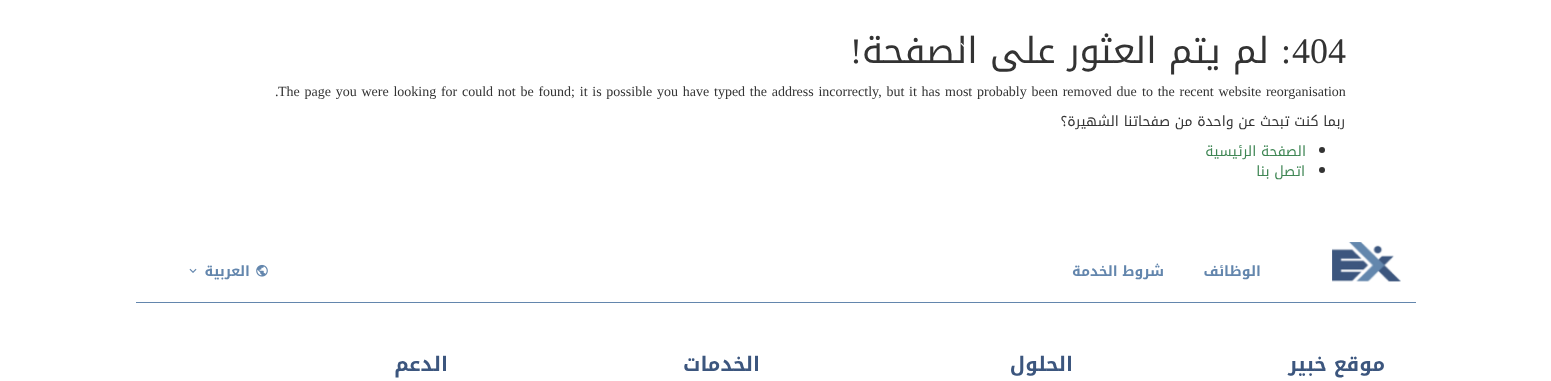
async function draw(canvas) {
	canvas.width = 1551;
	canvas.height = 381;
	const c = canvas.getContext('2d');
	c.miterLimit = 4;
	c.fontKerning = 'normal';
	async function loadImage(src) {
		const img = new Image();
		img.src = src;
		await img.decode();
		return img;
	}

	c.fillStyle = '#fff';
	c.fillRect(0, 0, 1551, 381);
	c.direction = 'rtl';
	c.font = '36px Liberation Serif';
	c.fillStyle = '#333';
	c.fillText('!', 862, 63);
	c.font = '36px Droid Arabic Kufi';
	c.fillText('لم يتم العثور على الصفحة', 1269, 63);
	c.font = '36px Liberation Serif';
	c.fillText(':', 1291, 63);
	c.direction = 'ltr';
	c.fillText('404', 1292, 63);
	c.font = '14px Liberation Serif';
	c.fillText('.', 275, 96);
	c.wordSpacing = '1.25px';
	for (const [text, x, y] of [
		['The page you were looking for could not be found; it is possible you have', 278, 96],
		['typed the address incorrectly, but it has most probably been removed due', 714, 96],
		['to the recent website reorganisation', 1142, 96],
	]) {
		c.fillText(text, x, y);
	}
	c.wordSpacing = '0px';
	c.direction = 'rtl';
	c.font = '14px Droid Arabic Kufi';
	c.fillText('ربما كنت تبحث عن واحدة من صفحاتنا الشهيرة؟', 1345, 126);
	c.fillStyle = '#3f8654';
	c.fillText('الصفحة الرئيسية', 1306, 156);
	c.fillStyle = '#333';
	c.beginPath();
	c.arc(1322, 150, 3, 0, 2 * Math.PI);
	c.fill();
	c.fillStyle = '#3f8654';
	c.fillText('اتصل بنا', 1305, 176);
	c.fillStyle = '#333';
	c.beginPath();
	c.arc(1322, 170, 3, 0, 2 * Math.PI);
	c.fill();
	c.drawImage(await loadImage('img1.png'), 960, 42, 4, 5);
	c.fillStyle = '#6386ad';
	c.fillRect(136, 302, 1280, 1);
	c.drawImage(await loadImage('img2.png'), 189, 268, 8, 5);
	c.font = 'bold 14px Droid Arabic Kufi';
	c.fillText('العربية', 250, 276);
	c.drawImage(await loadImage('img3.png'), 256, 264, 12, 13);
	c.fillText('شروط الخدمة', 1164, 276);
	c.fillText('الوظائف', 1261, 276);
	c.drawImage(await loadImage('img4.png'), 1332, 242, 69, 40);
	c.font = 'bold 20px Droid Arabic Kufi';
	c.fillStyle = '#3c567e';
	for (const [text, x, y] of [
		['الدعم', 448, 371],
		['الخدمات', 760, 371],
		['الحلول', 1073, 371],
		['موقع خبير', 1385, 371],
	]) {
		c.fillText(text, x, y);
	}
}

draw(document.querySelector('canvas'));
